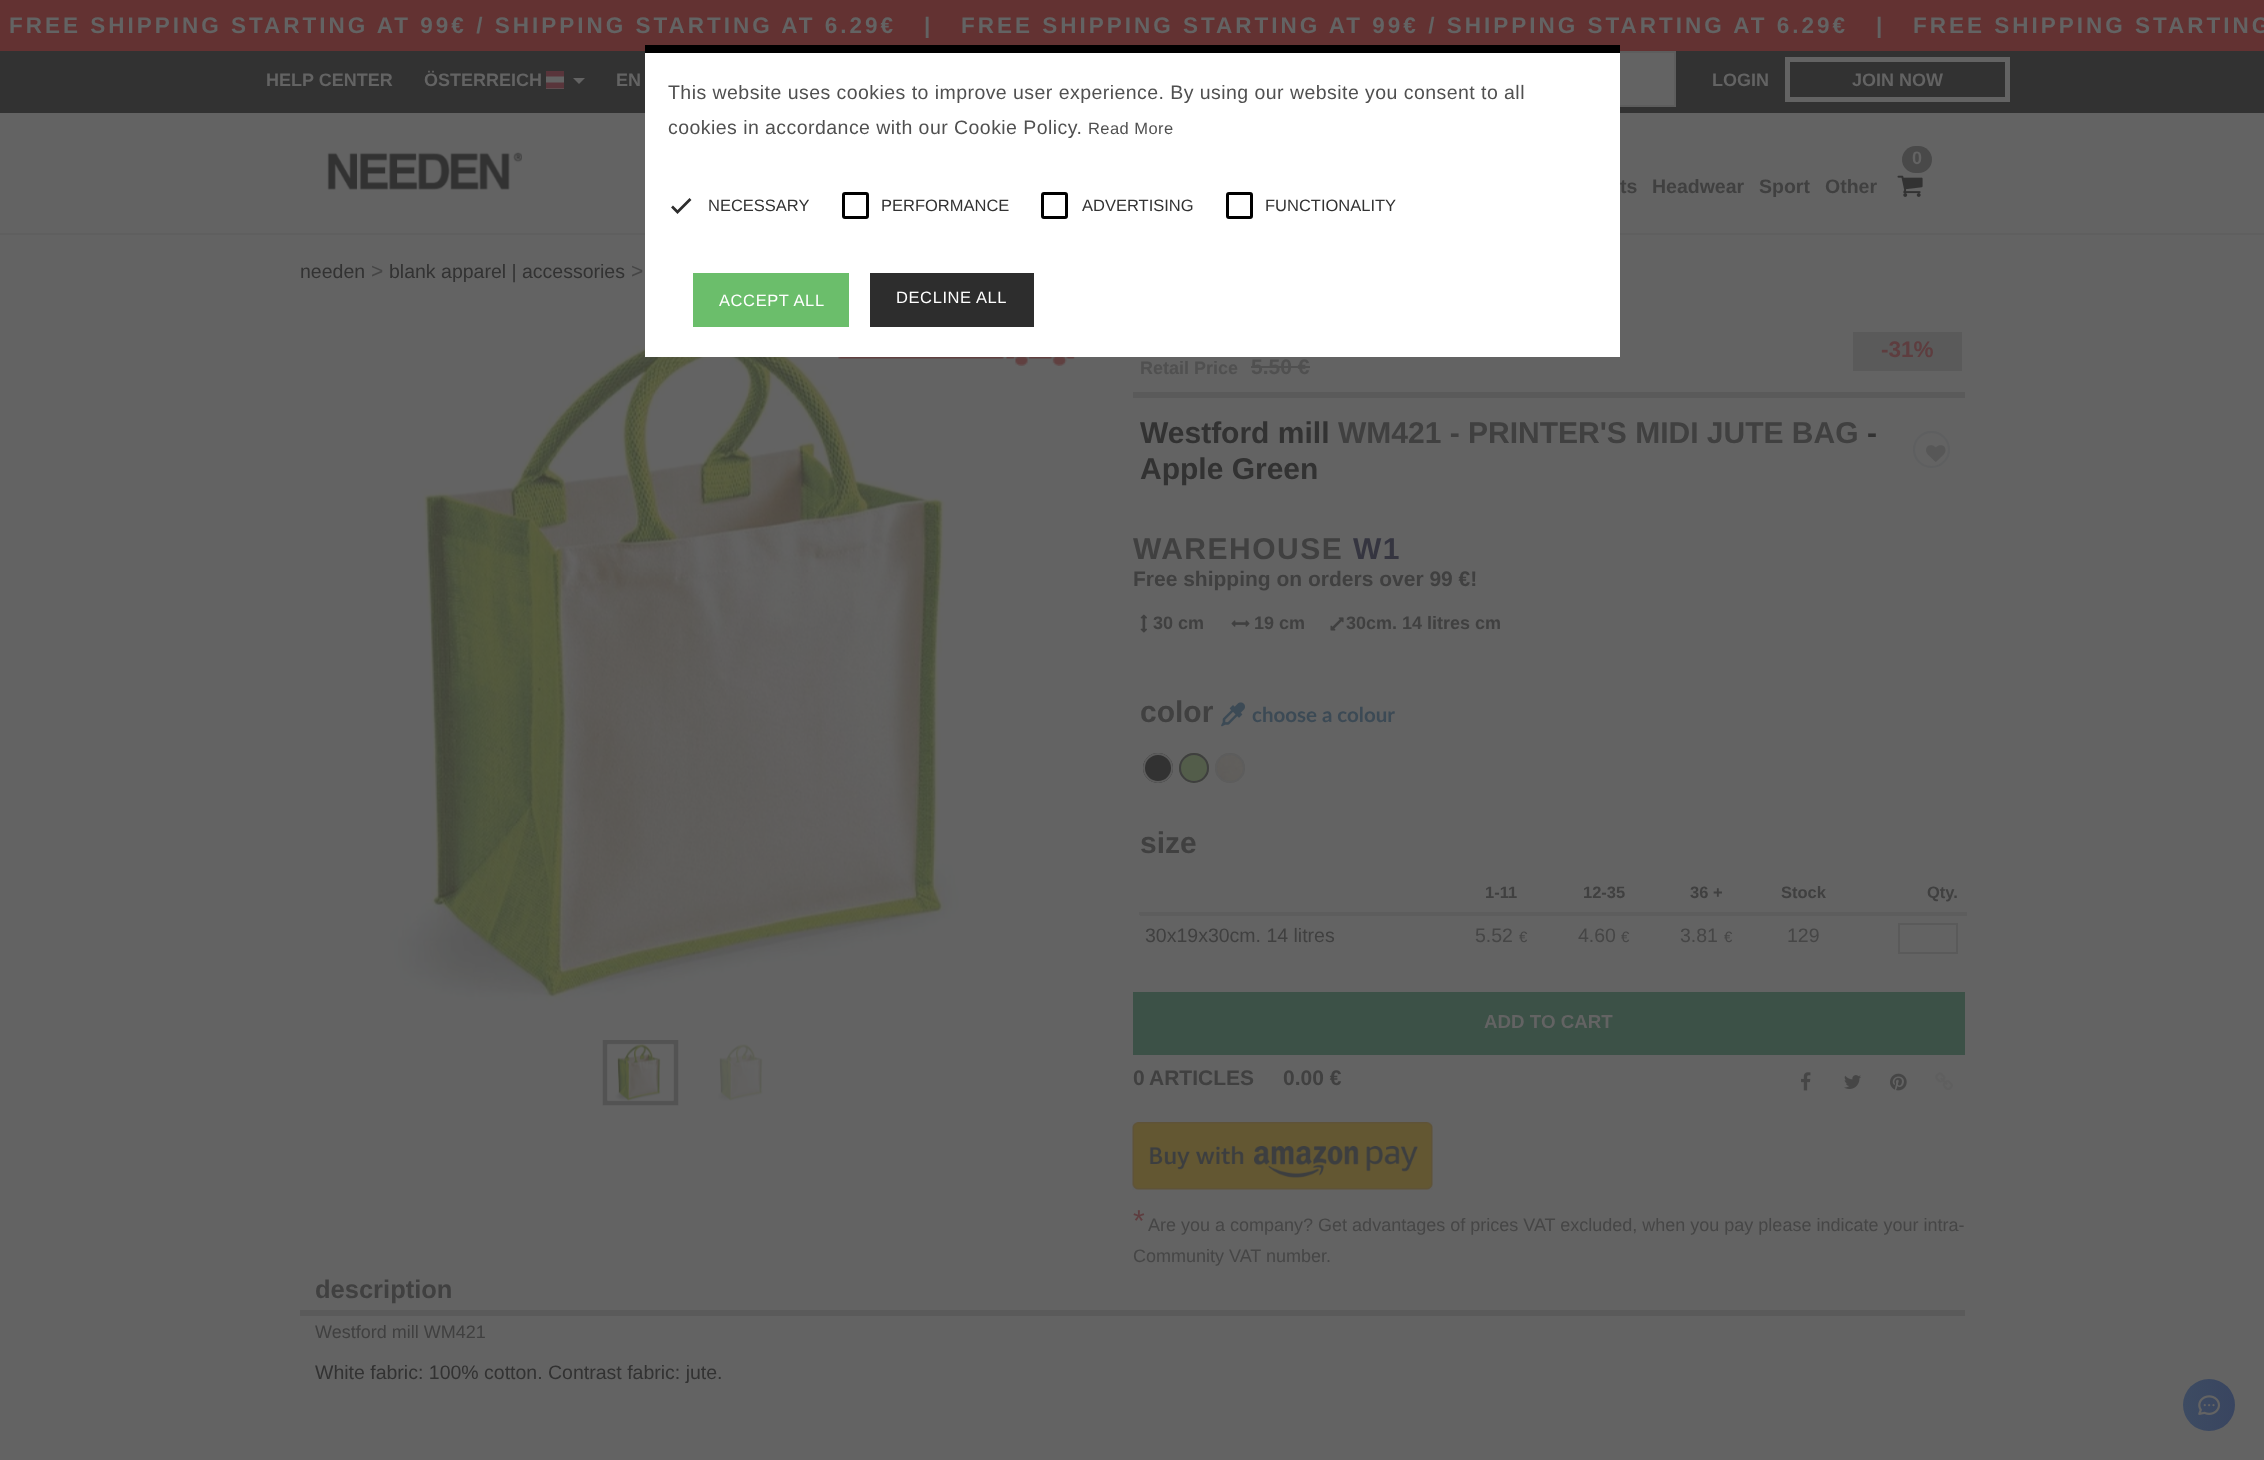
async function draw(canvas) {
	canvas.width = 2264;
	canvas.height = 1460;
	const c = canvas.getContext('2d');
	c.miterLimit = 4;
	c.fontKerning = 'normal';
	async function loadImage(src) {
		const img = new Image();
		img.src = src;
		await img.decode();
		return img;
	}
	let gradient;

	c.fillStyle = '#636363';
	c.fillRect(0, 0, 2264, 1460);
	c.fillStyle = '#633232';
	c.fillRect(0, 0, 2264, 51);
	c.letterSpacing = '3px';
	c.font = 'bold 22.5px Liberation Sans';
	c.fillStyle = '#636363';
	for (const [text, x, y] of [
		['FREE SHIPPING STARTING AT 99€ / SHIPPING STARTING AT 6.29€', 9, 33],
		['|', 924, 33],
		['FREE SHIPPING STARTING AT 99€ / SHIPPING STARTING AT 6.29€', 961, 33],
		['|', 1876, 33],
		['FREE SHIPPING STARTING', 1913, 33],
	]) {
		c.fillText(text, x, y);
	}
	c.fillStyle = '#323232';
	c.fillRect(0, 51, 2264, 62);
	c.letterSpacing = '0px';
	c.font = 'bold 18px Liberation Sans';
	c.fillStyle = '#636363';
	c.fillText('HELP CENTER', 266, 86);
	c.fillText('ÖSTERREICH', 424, 86);
	c.drawImage(await loadImage('img1.png'), 546, 71, 18, 18);
	c.beginPath();
	c.moveTo(573, 78);
	c.lineTo(585, 78);
	c.lineTo(579, 84);
	c.closePath();
	c.fill();
	c.fillText('EN', 616, 86);
	c.fillRect(1620, 53, 54, 52);
	c.strokeStyle = '#5d5d5d';
	c.lineWidth = 2;
	c.strokeRect(1354, 52, 321, 54);
	c.fillText('LOGIN', 1712, 86);
	c.strokeStyle = '#636363';
	c.lineWidth = 5;
	c.strokeRect(1787.5, 59.5, 220, 40);
	c.fillText('JOIN NOW', 1852, 86);
	c.fillStyle = '#5f5f5f';
	c.fillRect(0, 233, 2264, 2);
	c.drawImage(await loadImage('img4.png'), 388, 327, 577, 679);
	c.fillStyle = '#fff';
	c.fillRect(645, 53, 975, 304);
	c.fillStyle = '#000';
	c.fillRect(645, 45, 975, 8);
	c.letterSpacing = '0.45px';
	c.font = '19.5px Liberation Sans';
	c.fillStyle = '#505050';
	c.fillText('This website uses cookies to improve user experience. By using our website you consent to all', 668, 99);
	c.fillText('cookies in accordance with our Cookie Policy.', 668, 134);
	c.font = '16.5px Liberation Sans';
	c.fillText('Read More', 1088, 134);
	c.beginPath();
	c.moveTo(672, 206.5);
	c.lineTo(677.5, 212);
	c.lineTo(690.5, 199);
	c.strokeStyle = '#2d2d2d';
	c.lineWidth = 2.7;
	c.stroke();
	c.letterSpacing = '0px';
	c.fillStyle = '#323232';
	c.fillText('NECESSARY', 708, 211);
	c.beginPath();
	c.roundRect(843.5, 193.5, 24, 24, 1.5);
	c.strokeStyle = '#000';
	c.lineWidth = 3;
	c.stroke();
	c.fillText('PERFORMANCE', 881, 211);
	c.beginPath();
	c.roundRect(1042.5, 193.5, 24, 24, 1.5);
	c.stroke();
	c.fillText('ADVERTISING', 1082, 211);
	c.beginPath();
	c.roundRect(1227.5, 193.5, 24, 24, 1.5);
	c.stroke();
	c.fillText('FUNCTIONALITY', 1265, 211);
	c.fillStyle = '#6bbe6b';
	c.fillRect(693, 273, 156, 54);
	c.letterSpacing = '0.6px';
	c.fillStyle = '#fff';
	c.fillText('ACCEPT ALL', 719, 306);
	c.fillStyle = '#2d2d2d';
	c.fillRect(870, 273, 164, 54);
	c.fillStyle = '#fff';
	c.fillText('DECLINE ALL', 896, 303);
	c.drawImage(await loadImage('img2.png'), 327, 152, 195, 38);
	c.fillStyle = '#494949';
	c.beginPath();
	c.roundRect(1902, 146, 30, 27, 13.5);
	c.fill();
	c.letterSpacing = '0px';
	c.font = 'bold 18px Liberation Sans';
	c.fillStyle = '#636363';
	c.fillText('0', 1912, 164);
	c.drawImage(await loadImage('img3.png'), 1897, 175, 26, 22);
	c.font = 'bold 19.5px Liberation Sans';
	c.fillStyle = '#404040';
	for (const [text, x, y] of [
		['ts', 1620, 193],
		['Headwear', 1652, 193],
		['Sport', 1759, 193],
		['Other', 1825, 193],
	]) {
		c.fillText(text, x, y);
	}
	c.font = '19.5px Liberation Sans';
	c.fillStyle = '#323232';
	c.fillText('needen', 300, 278);
	c.font = '21px Liberation Sans';
	c.fillStyle = '#464646';
	c.fillText('>', 371, 278);
	c.font = '19.5px Liberation Sans';
	c.fillStyle = '#323232';
	c.fillText('blank apparel | accessories', 389, 278);
	c.font = '21px Liberation Sans';
	c.fillStyle = '#464646';
	c.fillText('>', 631, 278);
	c.drawImage(await loadImage('img5.png'), 838, 357, 237, 9);
	c.save();
	c.beginPath();
	c.rect(300, 1040, 810, 66);
	c.clip();
	c.beginPath();
	c.moveTo(605, 1042);
	c.lineTo(676, 1042);
	c.lineTo(676, 1103);
	c.lineTo(605, 1103);
	c.closePath();
	c.strokeStyle = '#535353';
	c.lineWidth = 4.5;
	c.stroke();
	c.restore();
	c.drawImage(await loadImage('img6.png'), 607, 1043, 67, 59);
	c.drawImage(await loadImage('img7.png'), 718, 1044, 45, 57);
	c.fillStyle = '#5a5a5a';
	c.fillRect(1133, 392, 832, 6);
	c.fillRect(1853, 332, 109, 39);
	c.font = 'bold 22.5px Liberation Sans';
	c.fillStyle = '#5e3d3f';
	c.fillText('-31%', 1881, 357);
	c.font = 'bold 18px Liberation Sans';
	c.fillStyle = '#505050';
	c.fillText('Retail Price', 1140, 374);
	c.font = 'bold 21px Liberation Sans';
	c.fillText('5.50 €', 1251, 374);
	c.fillRect(1251, 366, 59, 2);
	c.font = 'bold 30px Liberation Sans';
	c.fillStyle = '#323232';
	c.fillText('Westford mill', 1140, 443);
	c.fillStyle = '#404040';
	c.fillText('WM421 - PRINTER\'S MIDI JUTE BAG', 1338, 443);
	c.fillStyle = '#323232';
	c.fillText('-', 1867, 443);
	c.fillText('Apple Green', 1140, 479);
	c.beginPath();
	c.arc(1931.5, 449.5, 17.5, 0, 2 * Math.PI);
	c.strokeStyle = '#5e5f60';
	c.lineWidth = 2;
	c.stroke();
	c.drawImage(await loadImage('img8.png'), 1926, 445, 20, 17);
	c.letterSpacing = '1.5px';
	c.fillStyle = '#404040';
	c.fillText('WAREHOUSE', 1133, 559);
	c.fillStyle = '#353540';
	c.fillText('W1', 1353, 559);
	c.letterSpacing = '0px';
	c.font = 'bold 21px Liberation Sans';
	c.fillStyle = '#404040';
	c.fillText('Free shipping on orders over 99 €!', 1133, 586);
	c.drawImage(await loadImage('img9.png'), 1140, 614, 7, 19);
	c.font = 'bold 18px Liberation Sans';
	c.fillText('30 cm', 1153, 629);
	c.drawImage(await loadImage('img10.png'), 1231, 620, 19, 7);
	c.fillText('19 cm', 1254, 629);
	c.drawImage(await loadImage('img11.png'), 1330, 617, 14, 14);
	c.fillText('30cm. 14 litres cm', 1346, 629);
	c.font = 'bold 30px Liberation Sans';
	c.fillText('color', 1140, 722);
	c.drawImage(await loadImage('img12.png'), 1221, 702, 24, 25);
	c.font = 'bold 20.5px Lato';
	c.fillStyle = '#3c4a55';
	c.fillText('choose a colour', 1252, 722);
	c.drawImage(await loadImage('img13.png'), 1143, 753, 30, 30);
	c.beginPath();
	c.arc(1158, 768, 14, 0, 2 * Math.PI);
	c.strokeStyle = '#5d5d5d';
	c.stroke();
	c.drawImage(await loadImage('img14.png'), 1179, 753, 30, 30);
	c.beginPath();
	c.arc(1194, 768, 14, 0, 2 * Math.PI);
	c.strokeStyle = '#3f3f3f';
	c.stroke();
	c.drawImage(await loadImage('img15.png'), 1215, 753, 30, 30);
	c.beginPath();
	c.arc(1230, 768, 14, 0, 2 * Math.PI);
	c.strokeStyle = '#5d5d5d';
	c.stroke();
	c.font = 'bold 30px Liberation Sans';
	c.fillStyle = '#404040';
	c.fillText('size', 1140, 853);
	c.font = 'bold 16.5px Liberation Sans';
	for (const [text, x, y] of [
		['1-11', 1485, 898],
		['12-35', 1583, 898],
		['36 +', 1690, 898],
		['Stock', 1781, 898],
	]) {
		c.fillText(text, x, y);
	}
	c.fillStyle = '#5d5d5d';
	c.fillRect(1139, 912, 828, 3);
	c.fillStyle = '#404040';
	c.fillText('Qty.', 1927, 898);
	c.fillStyle = '#5d5d5d';
	c.fillRect(1140, 915, 827, 1);
	c.strokeStyle = '#5a5a5a';
	c.strokeRect(1899, 924, 58, 29);
	c.font = '19.5px Liberation Sans';
	c.fillStyle = '#404040';
	c.fillText('30x19x30cm. 14 litres', 1145, 942);
	c.fillStyle = '#464646';
	c.fillText('5.52', 1475, 942);
	c.font = '15px Liberation Sans';
	c.fillText('€', 1519, 942);
	c.font = '19.5px Liberation Sans';
	c.fillText('4.60', 1578, 942);
	c.font = '15px Liberation Sans';
	c.fillText('€', 1621, 942);
	c.font = '19.5px Liberation Sans';
	c.fillText('3.81', 1680, 942);
	c.font = '15px Liberation Sans';
	c.fillText('€', 1724, 942);
	c.font = '19.5px Liberation Sans';
	c.fillText('129', 1787, 942);
	c.fillStyle = '#3c5147';
	c.fillRect(1133, 992, 832, 63);
	c.font = 'bold 18.75px Liberation Sans';
	c.fillStyle = '#636363';
	c.fillText('ADD TO CART', 1484, 1028);
	c.font = 'bold 21px Liberation Sans';
	c.fillStyle = '#404040';
	for (const [text, x, y] of [
		['0', 1133, 1085],
		['ARTICLES', 1149, 1085],
		['0.00 €', 1283, 1085],
	]) {
		c.fillText(text, x, y);
	}
	c.drawImage(await loadImage('img16.png'), 1801, 1072, 10, 19);
	c.drawImage(await loadImage('img17.png'), 1844, 1075, 17, 14);
	c.drawImage(await loadImage('img18.png'), 1890, 1073, 17, 18);
	c.drawImage(await loadImage('img19.png'), 1935, 1072, 18, 18);
	c.drawImage(await loadImage('img20.png'), 1132, 1122, 301, 68);
	c.font = '30px Liberation Sans';
	c.fillStyle = '#5e3d3f';
	c.fillText('*', 1133, 1231);
	c.font = '18px Liberation Sans';
	c.fillStyle = '#464646';
	c.fillText('Are you a company? Get advantages of prices VAT excluded, when you pay please indicate your intra-', 1148, 1231);
	c.fillText('Community VAT number.', 1133, 1262);
	c.fillStyle = '#5a5a5a';
	c.fillRect(300, 1310, 1665, 6);
	c.font = 'bold 25.5px Liberation Sans';
	c.fillStyle = '#404040';
	c.fillText('description', 315, 1298);
	c.font = '18px Liberation Sans';
	c.fillText('Westford mill WM421', 315, 1338);
	c.font = '19.5px Liberation Sans';
	c.fillStyle = '#323232';
	c.fillText('White fabric: 100% cotton. Contrast fabric: jute.', 315, 1379);
	gradient = c.createLinearGradient(2183, 1405, 2235, 1405);
	gradient.addColorStop(0, '#3d4b62');
	gradient.addColorStop(1, '#394560');
	c.fillStyle = gradient;
	c.beginPath();
	c.arc(2209, 1405, 26, 0, 2 * Math.PI);
	c.fill();
	c.drawImage(await loadImage('img21.png'), 2198, 1395, 23, 20);
}

draw(document.querySelector('canvas'));
